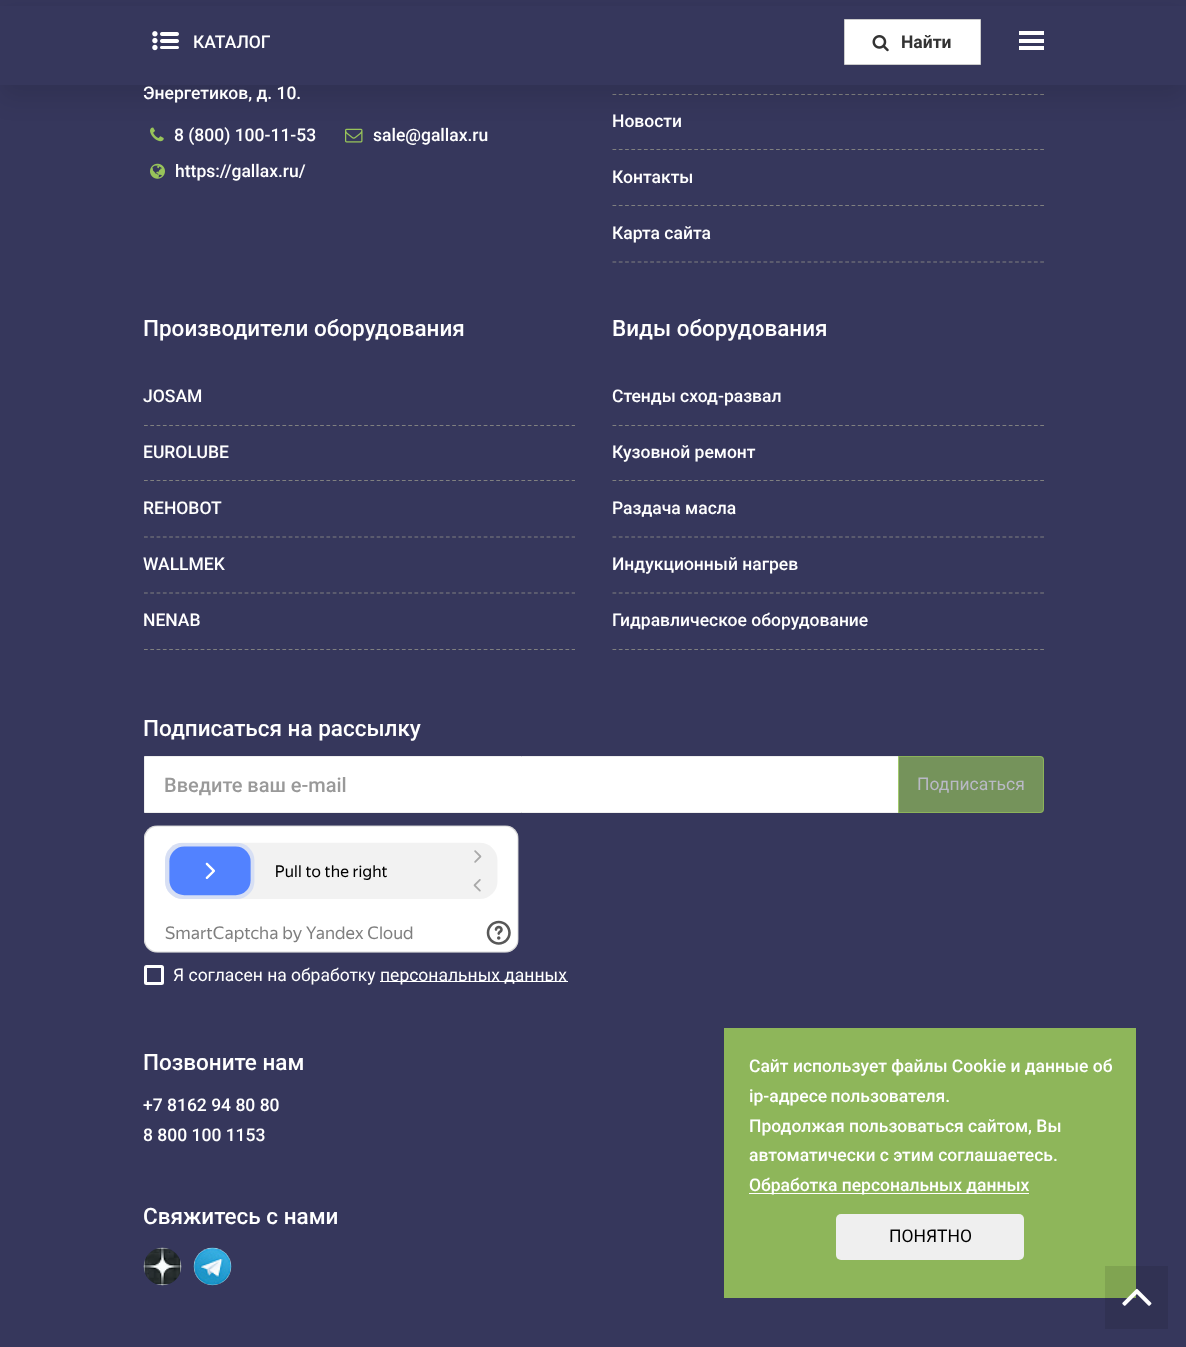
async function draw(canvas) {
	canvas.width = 1186;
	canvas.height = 1347;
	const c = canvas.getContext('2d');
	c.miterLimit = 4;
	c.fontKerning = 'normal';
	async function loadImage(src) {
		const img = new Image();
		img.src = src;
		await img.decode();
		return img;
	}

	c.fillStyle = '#36375c';
	c.fillRect(0, 0, 1186, 1347);
	c.drawImage(await loadImage('img3.png'), 150, 127, 14, 15);
	c.drawImage(await loadImage('img4.png'), 345, 128, 18, 15);
	c.beginPath();
	c.moveTo(612.5, 94.5);
	c.lineTo(1044, 94.5);
	c.strokeStyle = '#808080';
	c.lineWidth = 1.2;
	c.setLineDash([3.75, 2.54]);
	c.stroke();
	c.fillStyle = '#0000001a';
	c.filter = 'blur(12.5px)';
	c.beginPath();
	c.rect(0, 13, 1186, 85);
	c.fill();
	c.filter = 'none';
	c.fillStyle = '#36375c';
	c.fillRect(0, 6, 1186, 79);
	c.drawImage(await loadImage('img1.png'), 152, 31, 27, 20);
	c.font = '500 17.5px Roboto';
	c.fillStyle = '#fff';
	c.fillText('КАТАЛОГ', 193, 48);
	c.beginPath();
	c.rect(844.5, 19.5, 136, 45);
	c.fill();
	c.strokeStyle = '#ccc';
	c.lineWidth = 1;
	c.setLineDash([]);
	c.stroke();
	c.drawImage(await loadImage('img2.png'), 872, 35, 17, 17);
	c.font = 'bold 17.5px Roboto';
	c.fillStyle = '#333';
	c.fillText('Найти', 901, 48);
	for (const [x, y, w, h, color] of [
		[1019, 31, 25, 4, '#fff'],
		[1019, 39, 25, 4, '#fff'],
		[1019, 46, 25, 4, '#fff'],
		[1105, 1266, 63, 63, '#313253'],
	]) {
		c.fillStyle = color;
		c.fillRect(x, y, w, h);
	}
	c.font = '500 17.5px Roboto';
	c.fillStyle = '#fff';
	for (const [text, x, y] of [
		['Энергетиков, д. 10.', 143, 99],
		['8 (800) 100-11-53', 174, 141],
		['sale@gallax.ru', 373, 141],
	]) {
		c.fillText(text, x, y);
	}
	c.drawImage(await loadImage('img5.png'), 150, 163, 15, 16);
	c.fillText('https://gallax.ru/', 175, 177);
	c.beginPath();
	c.moveTo(612.5, 149.5);
	c.lineTo(1044, 149.5);
	c.strokeStyle = '#808080';
	c.lineWidth = 1.2;
	c.setLineDash([3.75, 2.54]);
	c.stroke();
	c.fillText('Новости', 612, 127);
	c.beginPath();
	c.moveTo(612.5, 205.5);
	c.lineTo(1044, 205.5);
	c.stroke();
	c.fillText('Контакты', 612, 183);
	c.beginPath();
	c.moveTo(612.5, 262);
	c.lineTo(1044, 262);
	c.stroke();
	c.fillText('Карта сайта', 612, 239);
	c.font = '500 22.5px Roboto';
	c.fillText('Производители оборудования', 143, 336);
	c.beginPath();
	c.moveTo(144, 425.5);
	c.lineTo(575, 425.5);
	c.stroke();
	c.font = '500 17.5px Roboto';
	c.fillText('JOSAM', 143, 402);
	c.beginPath();
	c.moveTo(144, 480.5);
	c.lineTo(575, 480.5);
	c.stroke();
	c.fillText('EUROLUBE', 143, 458);
	c.beginPath();
	c.moveTo(144, 537);
	c.lineTo(575, 537);
	c.stroke();
	c.fillText('REHOBOT', 143, 514);
	c.beginPath();
	c.moveTo(144, 593);
	c.lineTo(575, 593);
	c.stroke();
	c.fillText('WALLMEK', 143, 570);
	c.beginPath();
	c.moveTo(144, 649.5);
	c.lineTo(575, 649.5);
	c.stroke();
	c.fillText('NENAB', 143, 626);
	c.font = '500 22.5px Roboto';
	c.fillText('Виды оборудования', 612, 336);
	c.beginPath();
	c.moveTo(612.5, 425.5);
	c.lineTo(1044, 425.5);
	c.stroke();
	c.font = '500 17.5px Roboto';
	c.fillText('Стенды сход-развал', 612, 402);
	c.beginPath();
	c.moveTo(612.5, 480.5);
	c.lineTo(1044, 480.5);
	c.stroke();
	c.fillText('Кузовной ремонт', 612, 458);
	c.beginPath();
	c.moveTo(612.5, 537);
	c.lineTo(1044, 537);
	c.stroke();
	c.fillText('Раздача масла', 612, 514);
	c.beginPath();
	c.moveTo(612.5, 593);
	c.lineTo(1044, 593);
	c.stroke();
	c.fillText('Индукционный нагрев', 612, 570);
	c.beginPath();
	c.moveTo(612.5, 649.5);
	c.lineTo(1044, 649.5);
	c.stroke();
	c.fillText('Гидравлическое оборудование', 612, 626);
	c.font = '500 22.5px Roboto';
	c.fillText('Подписаться на рассылку', 143, 736);
	c.beginPath();
	c.rect(144.5, 756.5, 754, 56);
	c.fill();
	c.strokeStyle = '#eee';
	c.lineWidth = 1;
	c.setLineDash([]);
	c.stroke();
	c.font = '500 20px Roboto';
	c.fillStyle = '#999';
	c.fillText('Введите ваш e-mail', 164, 792);
	c.fillStyle = '#98c45aa6';
	c.beginPath();
	c.roundRect(898, 756, 146, 57, [0, 4, 4, 0]);
	c.fill();
	c.beginPath();
	c.roundRect(898.5, 756.5, 145, 56, [0, 3.5, 3.5, 0]);
	c.strokeStyle = '#98c45aa6';
	c.stroke();
	c.font = '17.5px Roboto';
	c.fillStyle = '#b9b9c6';
	c.fillText('Подписаться', 917, 790);
	c.drawImage(await loadImage('img6.png'), 144, 825, 375, 128);
	c.beginPath();
	c.roundRect(145.5, 966.5, 17, 17, 1);
	c.strokeStyle = '#fff';
	c.lineWidth = 3;
	c.stroke();
	c.fillStyle = '#fff';
	c.fillText('Я согласен на обработку', 173, 981);
	c.fillRect(380, 981, 188, 1);
	c.fillText('персональных данных', 380, 981);
	c.font = '500 22.5px Roboto';
	c.fillText('Позвоните нам', 143, 1070);
	c.font = '500 17.5px Roboto';
	c.fillText('+7 8162 94 80 80', 143, 1111);
	c.fillText('8 800 100 1153', 143, 1141);
	c.font = '500 22.5px Roboto';
	c.fillText('Свяжитесь с нами', 143, 1224);
	c.drawImage(await loadImage('img7.png'), 143, 1247, 39, 39);
	c.drawImage(await loadImage('img8.png'), 193, 1247, 39, 39);
	c.fillStyle = '#8eb65a';
	c.fillRect(724, 1028, 412, 270);
	c.fillStyle = '#80a451';
	c.fillRect(1105, 1266, 31, 32);
	c.font = '500 17.5px Roboto';
	c.fillStyle = '#fff';
	c.fillText('Сайт использует файлы Cookie и данные об', 749, 1072);
	c.wordSpacing = '-1px';
	c.fillText('ip-адресе пользователя.', 749, 1102);
	c.wordSpacing = '0px';
	c.fillText('Продолжая пользоваться сайтом, Вы', 749, 1132);
	c.fillText('автоматически с этим соглашаетесь.', 749, 1161);
	c.fillRect(749, 1193, 280, 1);
	c.fillText('Обработка персональных данных', 749, 1191);
	c.fillStyle = '#efefef';
	c.beginPath();
	c.roundRect(836, 1214, 188, 46, 5);
	c.fill();
	c.font = '17.5px Roboto';
	c.fillStyle = '#000';
	c.fillText('ПОНЯТНО', 889, 1242);
	c.drawImage(await loadImage('img9.png'), 1122, 1288, 30, 18);
}

draw(document.querySelector('canvas'));
